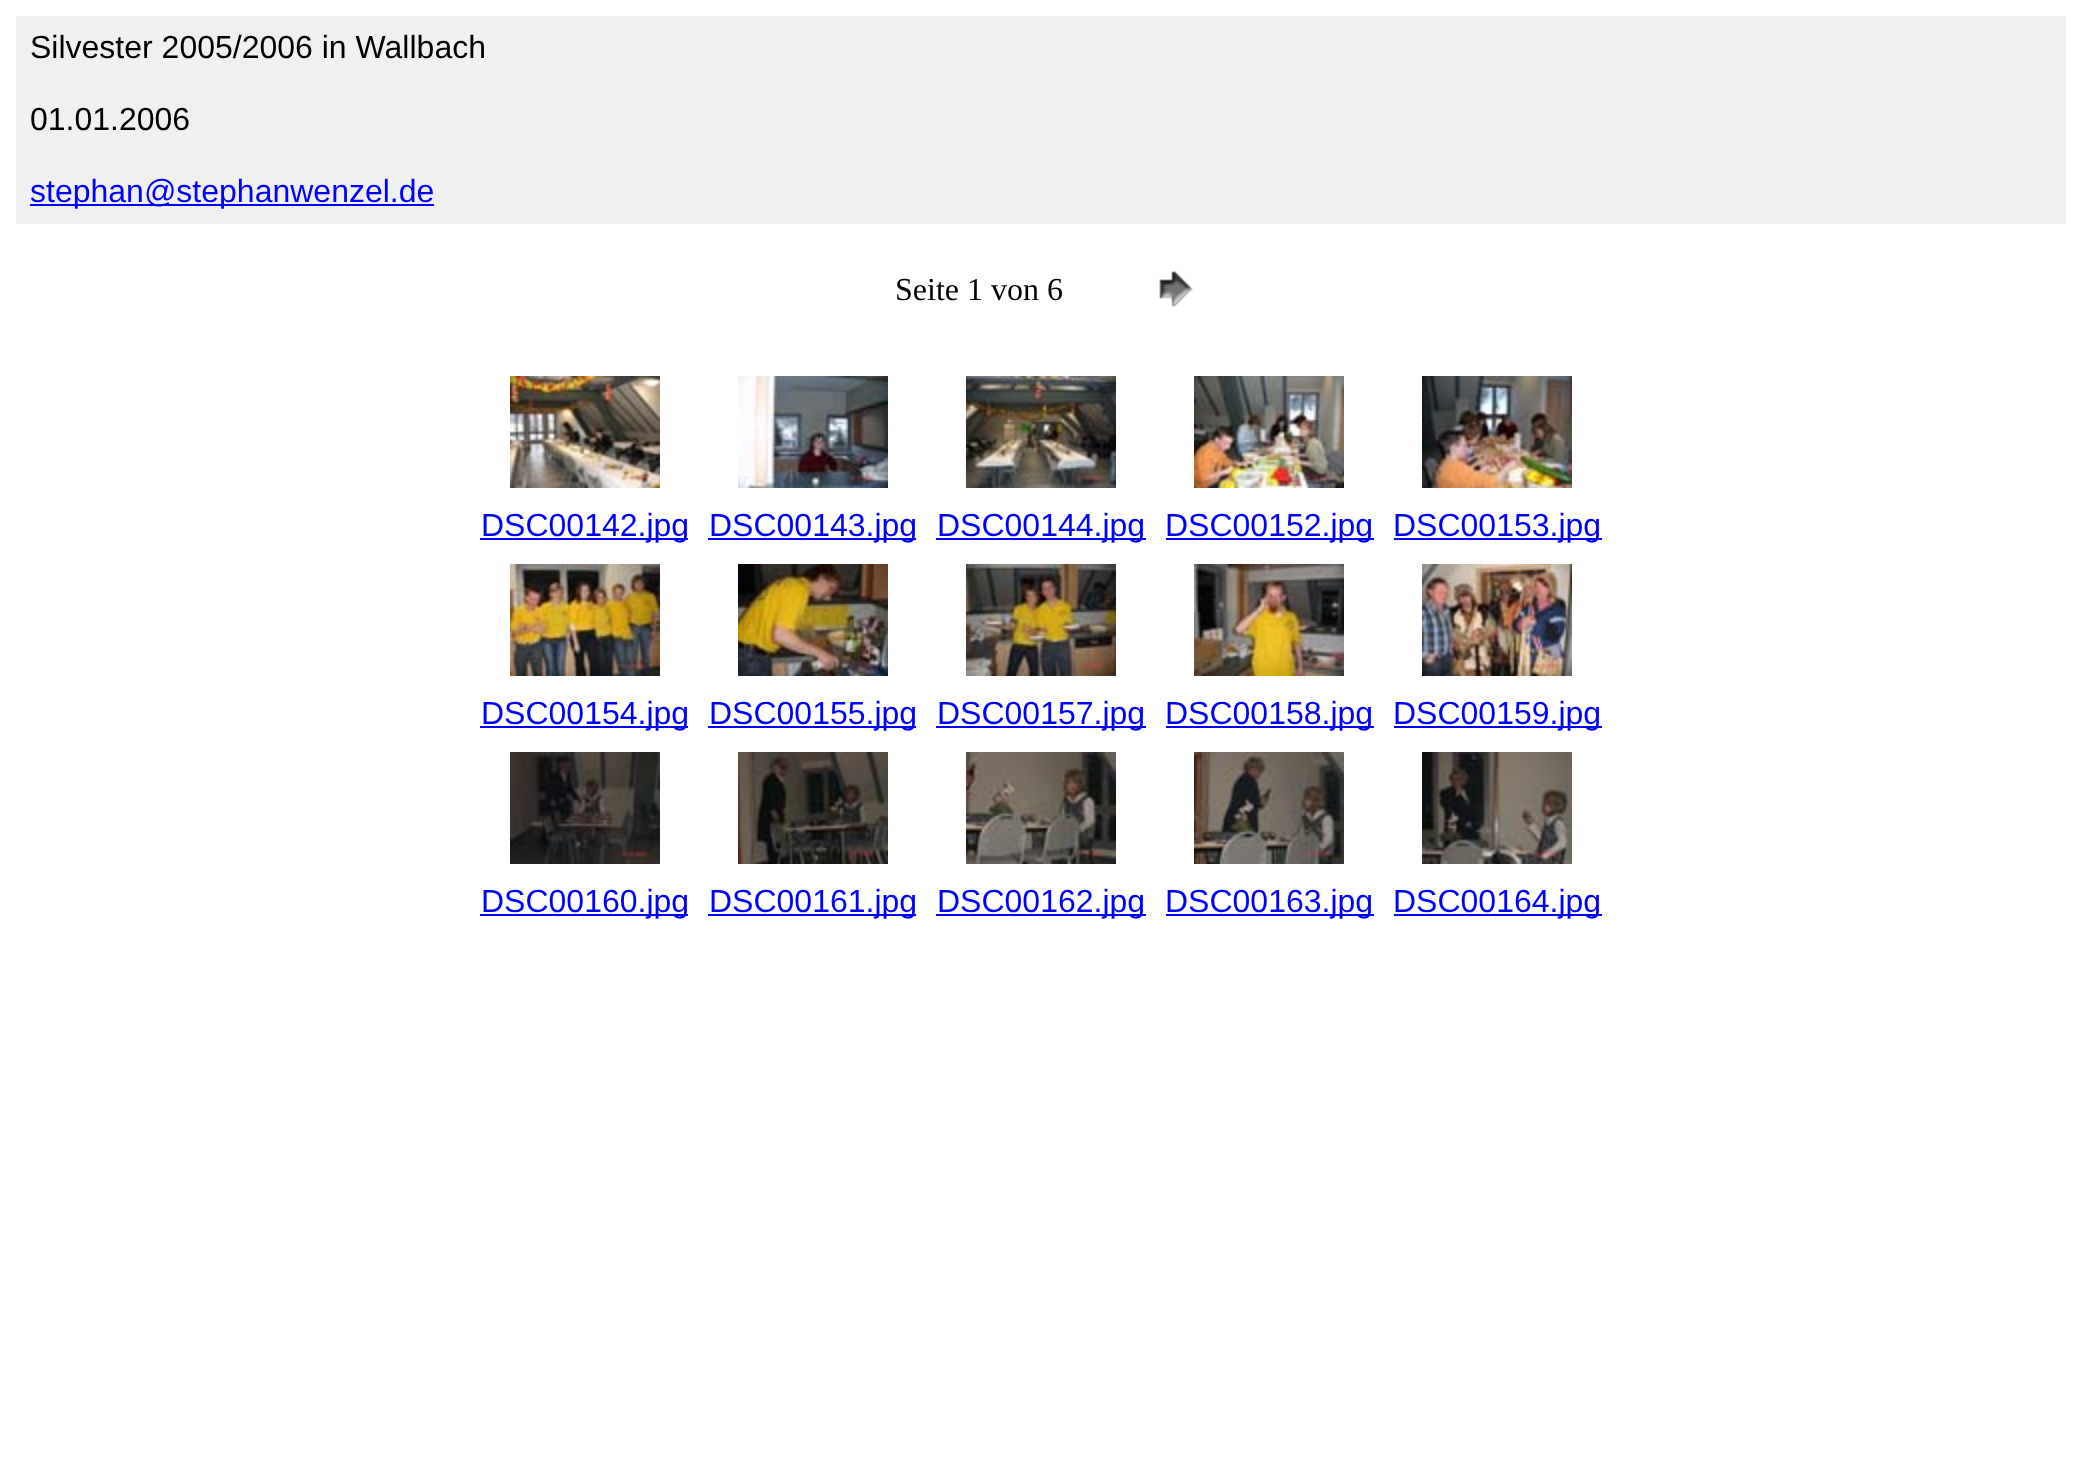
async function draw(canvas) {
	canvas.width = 2081;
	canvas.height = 1483;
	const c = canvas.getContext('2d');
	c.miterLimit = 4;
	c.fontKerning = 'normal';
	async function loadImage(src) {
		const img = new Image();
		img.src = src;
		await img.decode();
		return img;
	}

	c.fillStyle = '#fff';
	c.fillRect(0, 0, 2081, 1483);
	c.fillStyle = '#f0f0f0';
	c.fillRect(16, 16, 2050, 208);
	c.font = '32px Liberation Sans';
	c.fillStyle = '#000';
	c.fillText('Silvester 2005/2006 in Wallbach', 30, 58);
	c.fillText('01.01.2006', 30, 130);
	c.fillStyle = '#00f';
	c.fillRect(30, 204, 404, 2);
	c.fillText('stephan@stephanwenzel.de', 30, 202);
	c.font = '32px Liberation Serif';
	c.fillStyle = '#000';
	c.fillText('Seite 1 von 6', 895, 300);
	c.drawImage(await loadImage('img1.png'), 1159, 271, 34, 36);
	c.drawImage(await loadImage('img2.png'), 510, 376, 150, 112);
	c.drawImage(await loadImage('img3.png'), 738, 376, 150, 112);
	c.drawImage(await loadImage('img4.png'), 966, 376, 150, 112);
	c.drawImage(await loadImage('img5.png'), 1194, 376, 150, 112);
	c.drawImage(await loadImage('img6.png'), 1422, 376, 150, 112);
	c.fillStyle = '#00f';
	c.fillRect(480, 538, 208, 2);
	c.font = '32px Liberation Sans';
	c.fillText('DSC00142.jpg', 481, 536);
	c.fillRect(708, 538, 208, 2);
	c.fillText('DSC00143.jpg', 709, 536);
	c.fillRect(936, 538, 210, 2);
	c.fillText('DSC00144.jpg', 937, 536);
	c.fillRect(1166, 538, 208, 2);
	c.fillText('DSC00152.jpg', 1165, 536);
	c.fillRect(1394, 538, 208, 2);
	c.fillText('DSC00153.jpg', 1393, 536);
	c.drawImage(await loadImage('img7.png'), 510, 564, 150, 112);
	c.drawImage(await loadImage('img8.png'), 738, 564, 150, 112);
	c.drawImage(await loadImage('img9.png'), 966, 564, 150, 112);
	c.drawImage(await loadImage('img10.png'), 1194, 564, 150, 112);
	c.drawImage(await loadImage('img11.png'), 1422, 564, 150, 112);
	c.fillRect(480, 726, 208, 2);
	c.fillText('DSC00154.jpg', 481, 724);
	c.fillRect(708, 726, 208, 2);
	c.fillText('DSC00155.jpg', 709, 724);
	c.fillRect(936, 726, 210, 2);
	c.fillText('DSC00157.jpg', 937, 724);
	c.fillRect(1166, 726, 208, 2);
	c.fillText('DSC00158.jpg', 1165, 724);
	c.fillRect(1394, 726, 208, 2);
	c.fillText('DSC00159.jpg', 1393, 724);
	c.drawImage(await loadImage('img12.png'), 510, 752, 150, 112);
	c.drawImage(await loadImage('img13.png'), 738, 752, 150, 112);
	c.drawImage(await loadImage('img14.png'), 966, 752, 150, 112);
	c.drawImage(await loadImage('img15.png'), 1194, 752, 150, 112);
	c.drawImage(await loadImage('img16.png'), 1422, 752, 150, 112);
	c.fillRect(480, 914, 208, 2);
	c.fillText('DSC00160.jpg', 481, 912);
	c.fillRect(708, 914, 208, 2);
	c.fillText('DSC00161.jpg', 709, 912);
	c.fillRect(936, 914, 210, 2);
	c.fillText('DSC00162.jpg', 937, 912);
	c.fillRect(1166, 914, 208, 2);
	c.fillText('DSC00163.jpg', 1165, 912);
	c.fillRect(1394, 914, 208, 2);
	c.fillText('DSC00164.jpg', 1393, 912);
}

draw(document.querySelector('canvas'));
